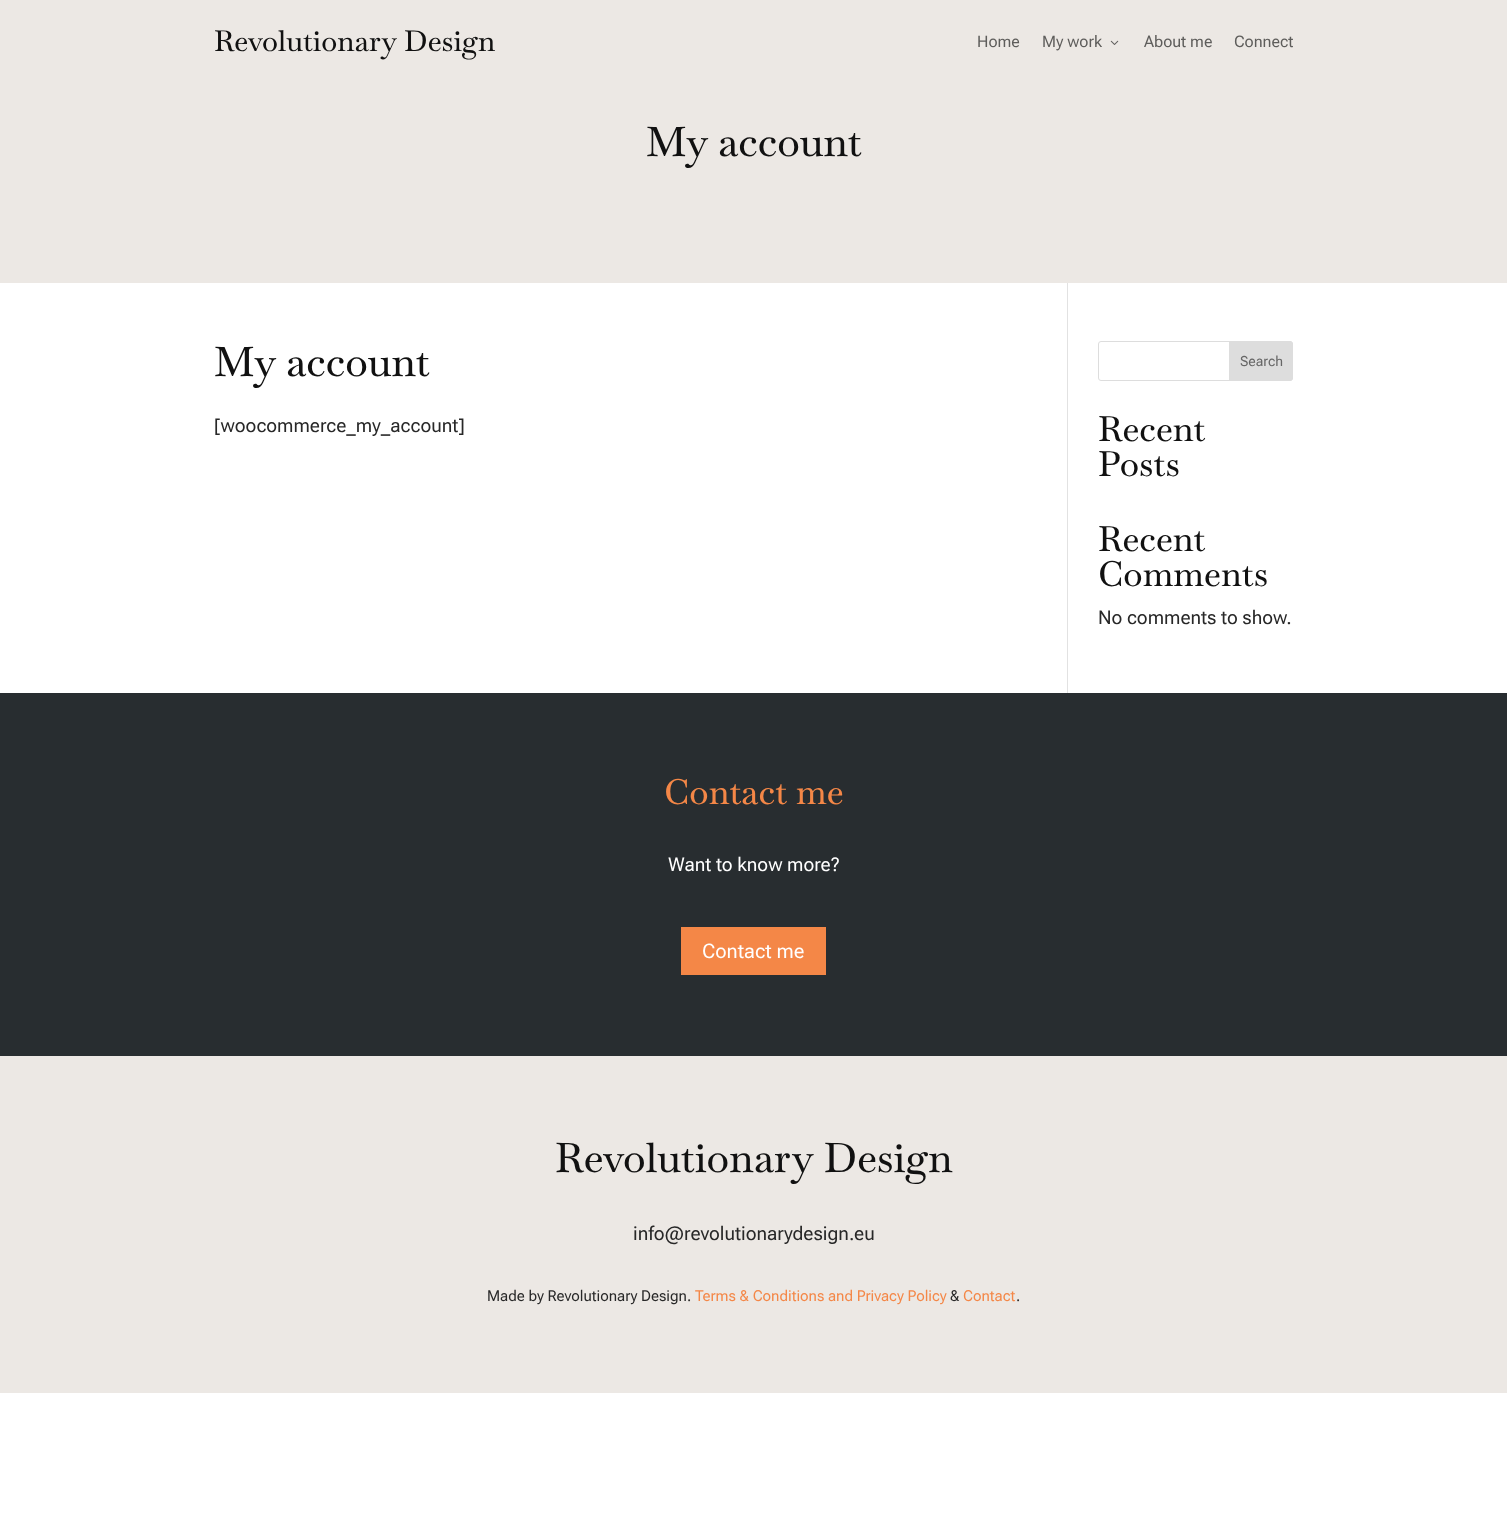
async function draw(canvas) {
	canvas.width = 1507;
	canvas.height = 1540;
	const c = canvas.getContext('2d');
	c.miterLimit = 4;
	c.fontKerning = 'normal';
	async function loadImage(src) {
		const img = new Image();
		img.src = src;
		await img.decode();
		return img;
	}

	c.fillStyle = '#fff';
	c.fillRect(0, 0, 1507, 1540);
	c.fillStyle = '#ece8e4';
	c.fillRect(0, 0, 1507, 283);
	c.font = '500 29px Baskervville';
	c.fillStyle = '#111';
	c.fillText('Revolutionary Design', 214, 51);
	c.font = '16px Roboto Flex';
	c.fillStyle = '#5e5d5b';
	c.fillText('Home', 977, 47);
	c.fillText('My work', 1042, 47);
	c.drawImage(await loadImage('img1.png'), 1110, 40, 9, 5);
	c.fillText('About me', 1144, 47);
	c.fillText('Connect', 1234, 47);
	c.font = '500 41px Baskervville';
	c.fillStyle = '#111';
	c.fillText('My account', 646, 156);
	c.fillStyle = '#e2e2e2';
	c.fillRect(1067, 283, 1, 410);
	c.fillStyle = '#111';
	c.fillText('My account', 214, 376);
	c.font = '19px Roboto Flex';
	c.fillStyle = '#282828';
	c.fillText('[woocommerce_my_account]', 214, 432);
	c.beginPath();
	c.roundRect(1098.5, 341.5, 194, 39, 2.5);
	c.strokeStyle = '#ddd';
	c.stroke();
	c.fillStyle = '#ddd';
	c.beginPath();
	c.roundRect(1229.5, 341.5, 63, 39, [0, 2.5, 2.5, 0]);
	c.fill();
	c.stroke();
	c.font = '14px Roboto Flex';
	c.fillStyle = '#666';
	c.fillText('Search', 1240, 366);
	c.font = '500 35px Baskervville';
	c.fillStyle = '#111';
	for (const [text, x, y] of [
		['Recent', 1098, 441],
		['Posts', 1098, 476],
		['Recent', 1098, 551],
		['Comments', 1098, 586],
	]) {
		c.fillText(text, x, y);
	}
	c.font = '19px Roboto Flex';
	c.fillStyle = '#282828';
	c.fillText('No comments to show.', 1098, 624);
	c.fillStyle = '#282d30';
	c.fillRect(0, 693, 1507, 363);
	c.font = '500 35px Baskervville';
	c.fillStyle = '#f48747';
	c.fillText('Contact me', 664, 804);
	c.font = '19px Roboto Flex';
	c.fillStyle = '#fff';
	c.fillText('Want to know more?', 668, 871);
	c.fillStyle = '#f48747';
	c.fillRect(681, 927, 145, 48);
	c.font = '20px Roboto Flex';
	c.fillStyle = '#fff';
	c.fillText('Contact me', 702, 958);
	c.fillStyle = '#ece8e4';
	c.fillRect(0, 1056, 1507, 337);
	c.font = '500 41px Baskervville';
	c.fillStyle = '#111';
	c.fillText('Revolutionary Design', 555, 1172);
	c.font = '19px Roboto Flex';
	c.fillStyle = '#282828';
	c.fillText('info@revolutionarydesign.eu', 633, 1240);
	c.font = '15px Roboto Flex';
	c.fillText('Made by Revolutionary Design.', 487, 1301);
	c.fillStyle = '#f48747';
	c.fillText('Terms & Conditions and Privacy Policy', 695, 1301);
	c.fillStyle = '#282828';
	c.fillText('&', 950, 1301);
	c.fillStyle = '#f48747';
	c.fillText('Contact', 963, 1301);
	c.fillStyle = '#282828';
	c.fillText('.', 1016, 1301);
}

draw(document.querySelector('canvas'));
